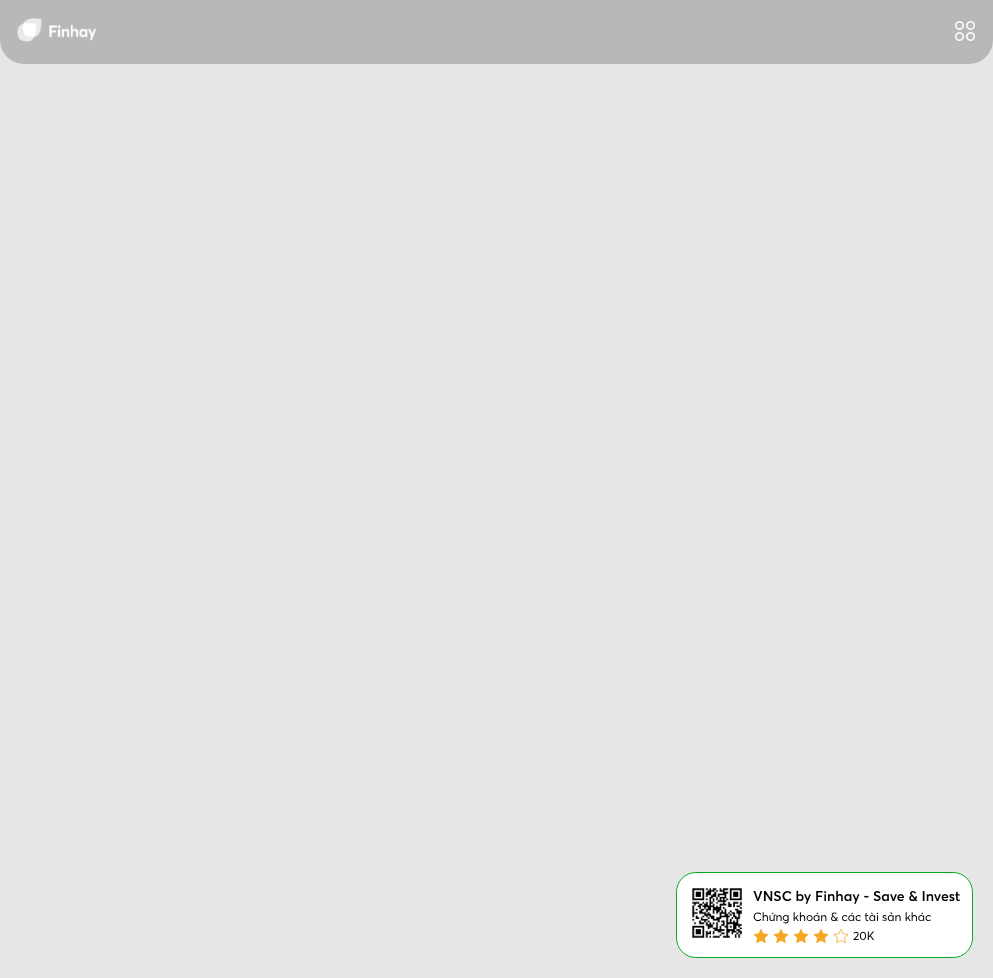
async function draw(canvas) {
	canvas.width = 993;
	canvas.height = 978;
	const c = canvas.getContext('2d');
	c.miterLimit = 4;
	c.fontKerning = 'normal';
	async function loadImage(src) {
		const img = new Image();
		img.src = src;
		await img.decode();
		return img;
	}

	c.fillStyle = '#e6e6e6';
	c.fillRect(0, 0, 993, 978);
	c.fillStyle = '#b8b8b8';
	c.beginPath();
	c.roundRect(0, 0, 993, 64, [0, 0, 24, 24]);
	c.fill();
	c.drawImage(await loadImage('img1.png'), 17, 18, 79, 24);
	c.drawImage(await loadImage('img2.png'), 955, 21, 20, 20);
	c.fillStyle = '#fff';
	c.beginPath();
	c.roundRect(676.5, 872.5, 296, 85, 19.5);
	c.fill();
	c.strokeStyle = '#07ab2a';
	c.stroke();
	c.drawImage(await loadImage('img3.png'), 692, 888, 50, 50);
	c.font = '600 14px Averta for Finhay';
	c.fillStyle = '#000';
	c.fillText('VNSC by Finhay - Save & Invest', 753, 901);
	c.font = '12px Averta for Finhay';
	c.fillText('Chứng khoán & các tài sản khác', 753, 921);
	c.drawImage(await loadImage('img4.png'), 753, 928, 16, 16);
	c.drawImage(await loadImage('img4.png'), 773, 928, 16, 16);
	c.drawImage(await loadImage('img4.png'), 793, 928, 16, 16);
	c.drawImage(await loadImage('img4.png'), 813, 928, 16, 16);
	c.drawImage(await loadImage('img5.png'), 833, 928, 16, 16);
	c.fillText('20K', 853, 940);
}

draw(document.querySelector('canvas'));
